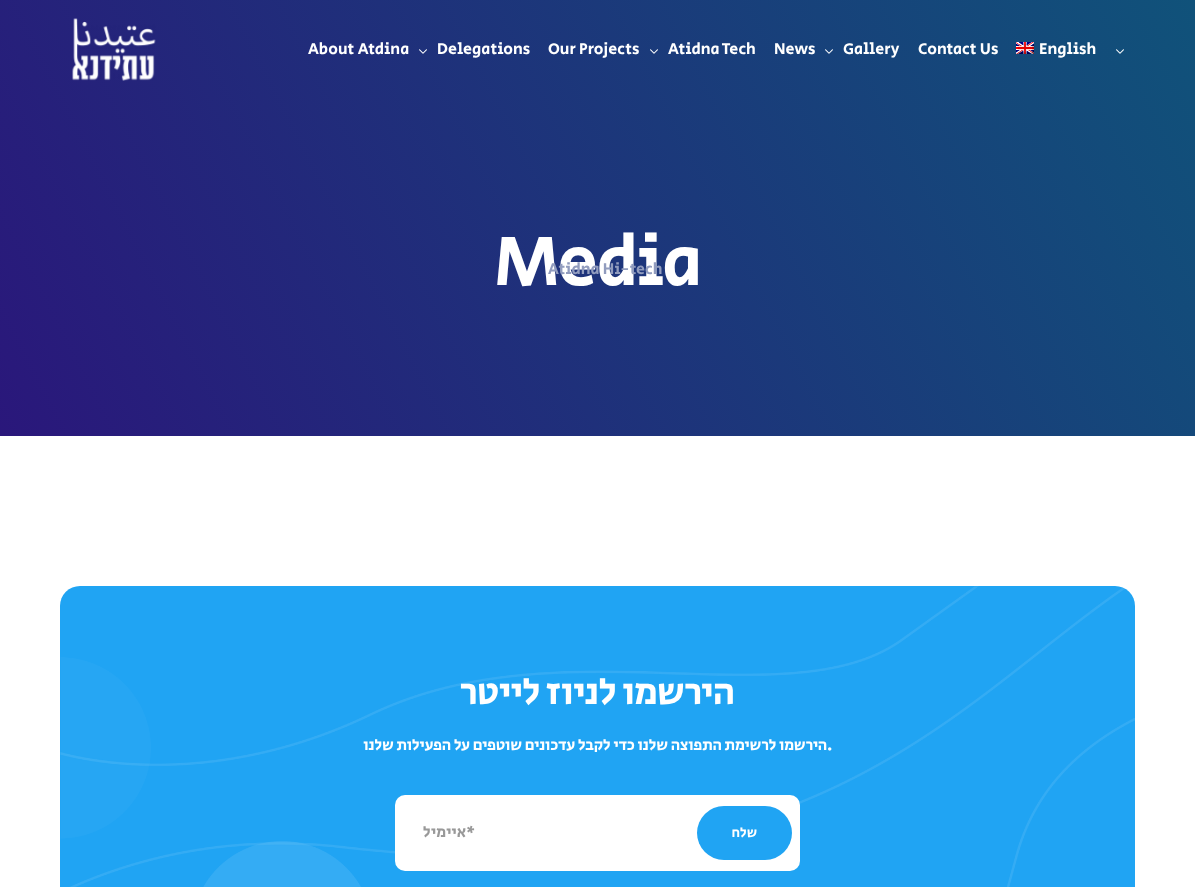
async function draw(canvas) {
	canvas.width = 1195;
	canvas.height = 887;
	const c = canvas.getContext('2d');
	c.miterLimit = 4;
	c.fontKerning = 'normal';
	async function loadImage(src) {
		const img = new Image();
		img.src = src;
		await img.decode();
		return img;
	}
	let gradient;

	c.fillStyle = '#fff';
	c.fillRect(0, 0, 1195, 887);
	gradient = c.createLinearGradient(1160, -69, 35, 505);
	gradient.addColorStop(0, '#10527a');
	gradient.addColorStop(1, '#2a177b');
	c.fillStyle = gradient;
	c.fillRect(0, 0, 1195, 436);
	c.drawImage(await loadImage('img1.png'), 72, 18, 84, 63);
	c.font = '16px Secular One';
	c.fillStyle = '#fff';
	c.fillText('About Atdina', 308, 54);
	c.drawImage(await loadImage('img2.png'), 419, 49, 8, 5);
	c.fillText('Delegations', 437, 54);
	c.fillText('Our Projects', 548, 54);
	c.drawImage(await loadImage('img3.png'), 650, 49, 8, 5);
	c.letterSpacing = '-2px';
	c.font = '72px Secular One';
	c.fillText('Media', 494, 285);
	c.letterSpacing = '0px';
	c.font = '16px Secular One';
	c.fillStyle = '#919cbe';
	c.fillText('Atidna Hi-tech', 548, 274);
	c.fillStyle = '#fff';
	c.fillText('Atidna Tech', 668, 54);
	c.fillText('News', 774, 54);
	c.drawImage(await loadImage('img4.png'), 825, 49, 8, 5);
	c.fillText('Gallery', 843, 54);
	c.fillText('Contact Us', 918, 54);
	c.drawImage(await loadImage('img5.png'), 1016, 42, 18, 12);
	c.fillText('English', 1039, 54);
	c.drawImage(await loadImage('img6.png'), 1116, 49, 8, 5);
	c.fillStyle = '#20a4f3';
	c.beginPath();
	c.roundRect(60, 586, 1075, 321, 20);
	c.fill();
	c.drawImage(await loadImage('img7.png'), 60, 586, 1075, 301);
	c.letterSpacing = '-1px';
	c.direction = 'rtl';
	c.font = '38px Secular One';
	c.fillStyle = '#fff';
	c.fillText('הירשמו לניוז לייטר', 734, 704);
	c.letterSpacing = '-0.25px';
	c.font = '16px Secular One';
	c.fillText('הירשמו לרשימת התפוצה שלנו כדי לקבל עדכונים שוטפים על הפעילות שלנו', 827, 750);
	c.direction = 'ltr';
	c.fillText('.', 827, 750);
	c.beginPath();
	c.roundRect(395, 795, 405, 76, 10);
	c.fill();
	c.letterSpacing = '0px';
	c.direction = 'rtl';
	c.fillStyle = '#999';
	c.fillText('איימיל', 466, 837);
	c.direction = 'ltr';
	c.fillText('*', 466, 837);
	c.fillStyle = '#20a4f3';
	c.beginPath();
	c.roundRect(697, 806, 95, 54, 27);
	c.fill();
	c.direction = 'rtl';
	c.font = '14px Secular One';
	c.fillStyle = '#fff';
	c.fillText('שלח', 757, 837);
}

draw(document.querySelector('canvas'));
